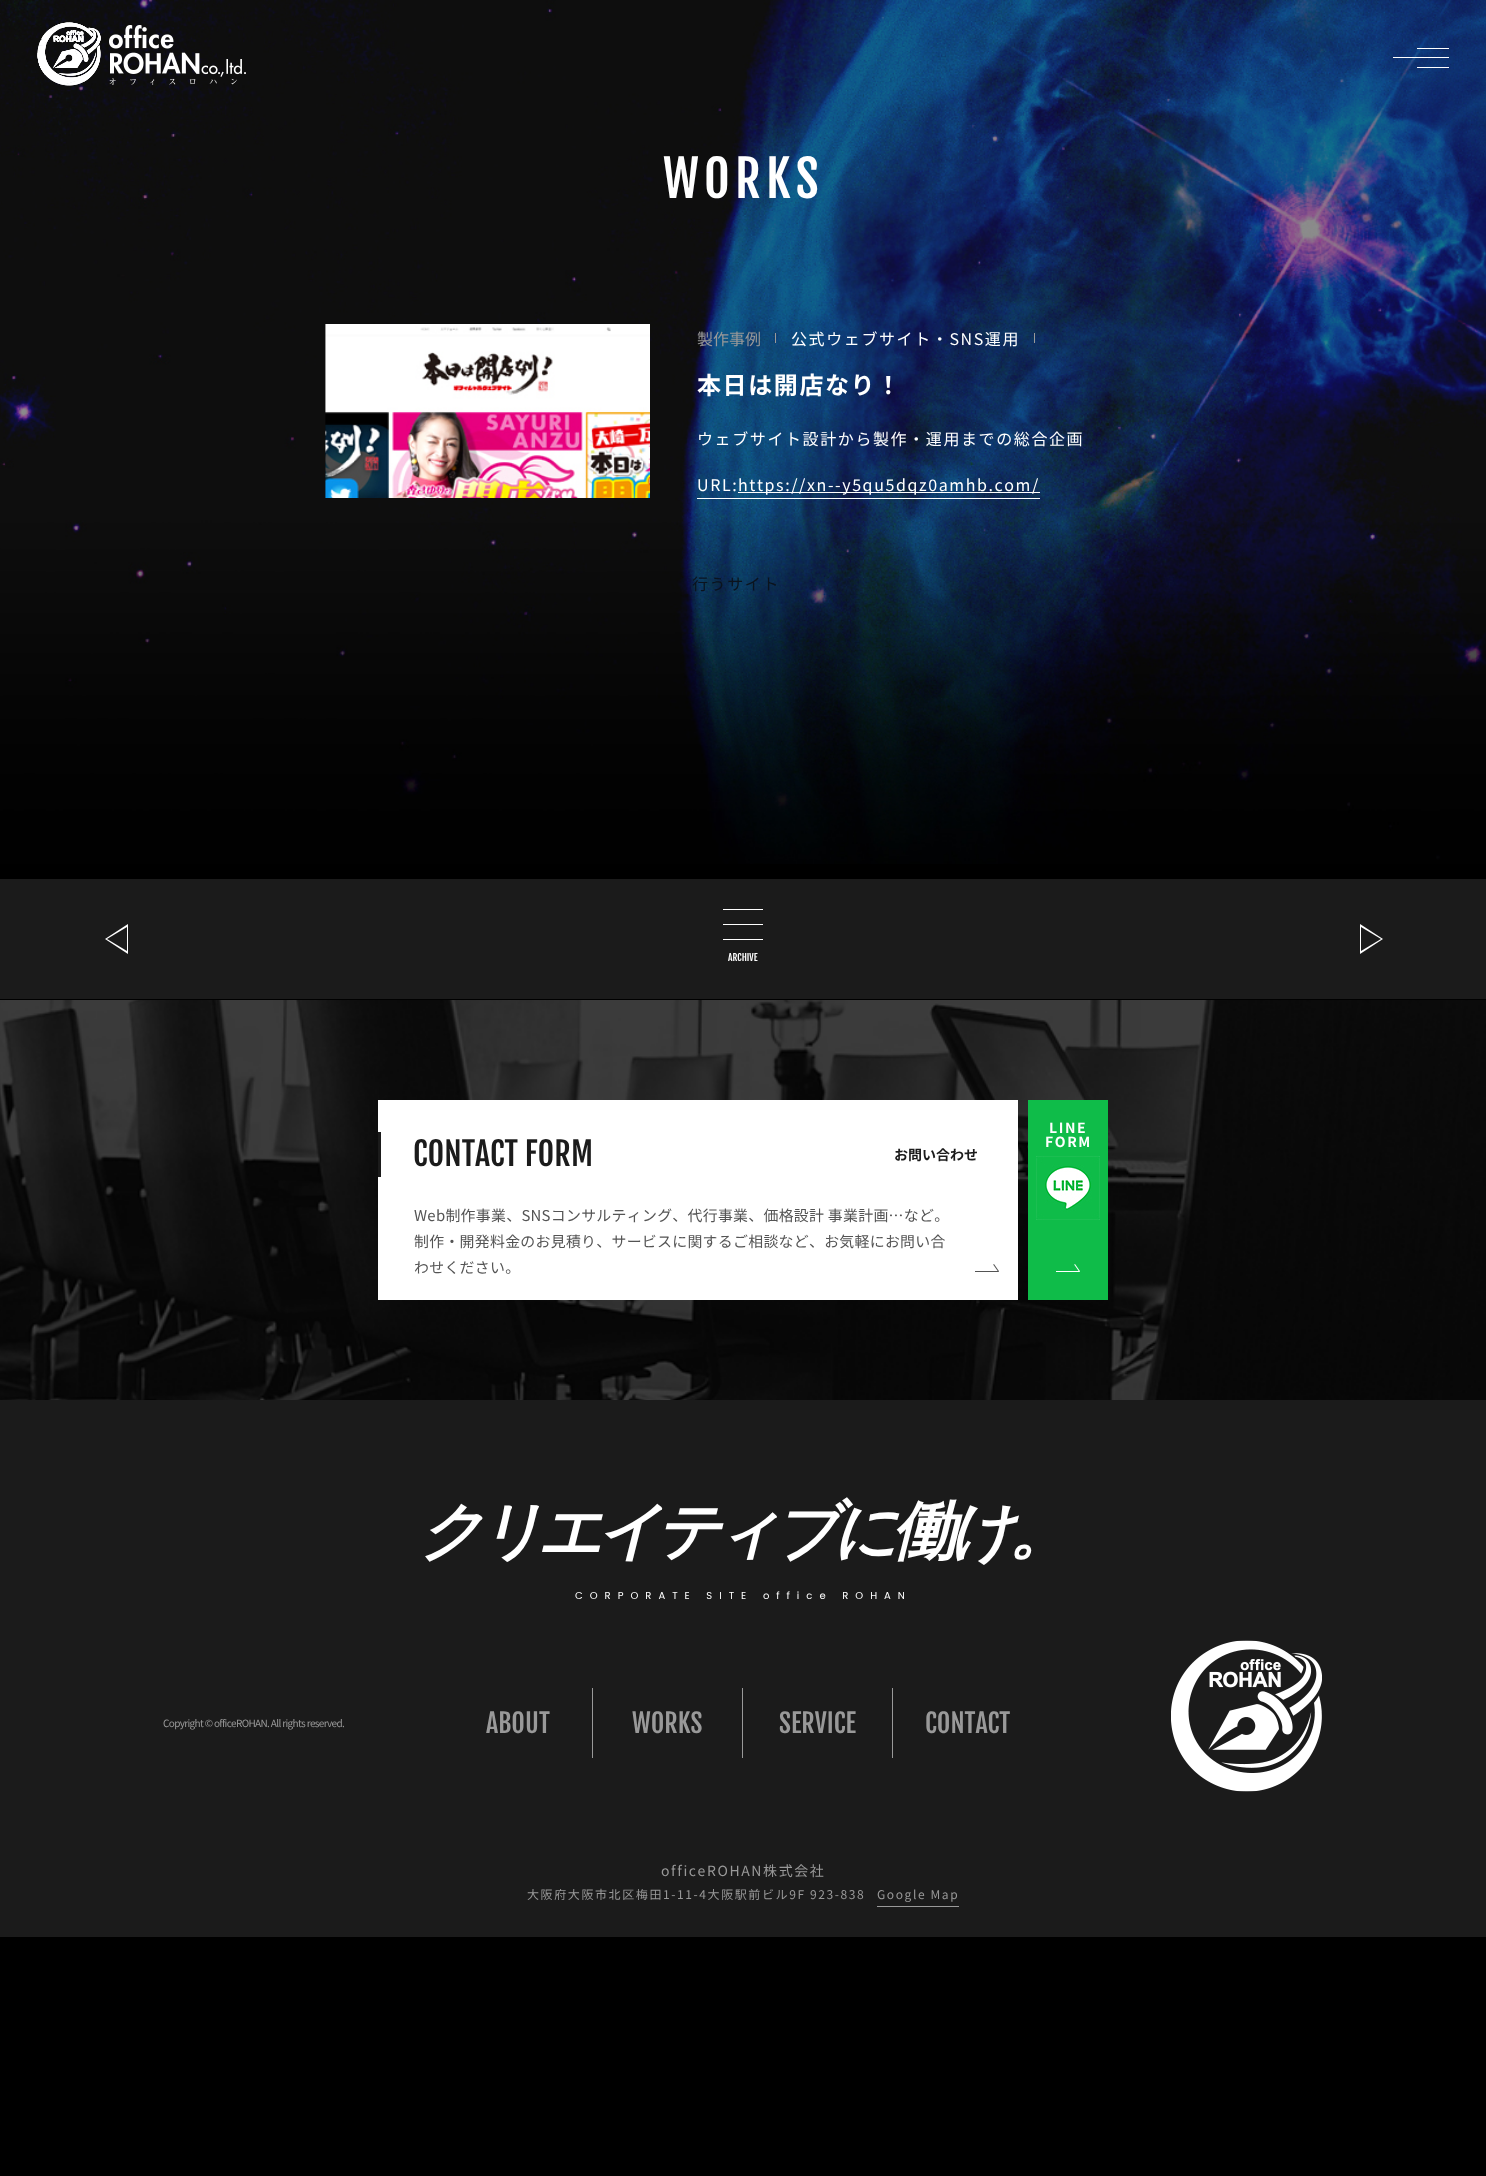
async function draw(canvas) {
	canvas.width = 1486;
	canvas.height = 2176;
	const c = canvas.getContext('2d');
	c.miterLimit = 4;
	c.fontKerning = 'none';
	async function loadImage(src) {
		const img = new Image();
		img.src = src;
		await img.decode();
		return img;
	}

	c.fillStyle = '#000';
	c.fillRect(0, 0, 1486, 2176);
	c.drawImage(await loadImage('img2.png'), 0, 0, 1486, 864);
	c.drawImage(await loadImage('img1.png'), 37, 22, 209, 64);
	for (const [x, y, w, h, color] of [
		[1417, 48, 32, 1, '#fff'],
		[1393, 57, 56, 1, '#fff'],
		[1417, 67, 32, 1, '#fff'],
	]) {
		c.fillStyle = color;
		c.fillRect(x, y, w, h);
	}
	c.letterSpacing = '5px';
	c.font = '50px Fjalla One';
	c.fillText('WORKS', 663, 198);
	c.drawImage(await loadImage('img3.png'), 325, 324, 325, 174);
	c.letterSpacing = '0px';
	c.font = '16px Noto Sans JP';
	c.fillStyle = '#999';
	c.fillText('製作事例', 697, 345);
	c.fillRect(775, 333, 1, 10);
	c.letterSpacing = '1.6px';
	c.fillStyle = '#fff';
	c.fillText('公式ウェブサイト・SNS運用', 791, 345);
	c.fillStyle = '#999';
	c.fillRect(1034, 333, 1, 10);
	c.font = 'bold 24px Noto Sans JP';
	c.fillStyle = '#fff';
	c.fillText('本日は開店なり！', 697, 394);
	c.font = '16px Noto Sans JP';
	c.fillText('ウェブサイト設計から製作・運用までの総合企画', 697, 445);
	c.fillRect(697, 498, 343, 1);
	c.fillText('URL:', 697, 491);
	c.fillRect(738, 492, 302, 1);
	c.fillText('https://xn--y5qu5dqz0amhb.com/', 738, 491);
	c.fillStyle = '#0b131d';
	c.fillText('行うサイト', 692, 590);
	c.fillStyle = '#1b1b1b';
	c.fillRect(0, 879, 1486, 120);
	c.fillStyle = '#fff';
	c.beginPath();
	c.moveTo(128, 924);
	c.lineTo(128, 954);
	c.lineTo(105, 939);
	c.closePath();
	c.fill();
	c.fillStyle = '#1b1b1b';
	c.beginPath();
	c.moveTo(127, 927);
	c.lineTo(127, 951);
	c.lineTo(107, 939);
	c.closePath();
	c.fill();
	c.fillStyle = '#fff';
	c.beginPath();
	c.moveTo(1360, 954);
	c.lineTo(1360, 924);
	c.lineTo(1383, 939);
	c.closePath();
	c.fill();
	c.fillStyle = '#1b1b1b';
	c.beginPath();
	c.moveTo(1361, 951);
	c.lineTo(1361, 927);
	c.lineTo(1381, 939);
	c.closePath();
	c.fill();
	for (const [x, y, w, h, color] of [
		[723, 909, 40, 1, '#fff'],
		[723, 924, 40, 1, '#fff'],
		[723, 939, 40, 1, '#fff'],
	]) {
		c.fillStyle = color;
		c.fillRect(x, y, w, h);
	}
	c.letterSpacing = '0px';
	c.font = '9.5px Fjalla One';
	c.fillText('ARCHIVE', 728, 961);
	c.drawImage(await loadImage('img4.png'), 0, 1000, 1486, 400);
	c.fillStyle = '#0fbc49';
	c.fillRect(1028, 1100, 80, 200);
	c.letterSpacing = '1.6px';
	c.font = 'bold 14px Noto Sans JP';
	c.fillStyle = '#fff';
	c.fillText('LINE', 1049, 1133);
	c.fillText('FORM', 1045, 1147);
	c.drawImage(await loadImage('img5.png'), 1036, 1156, 64, 64);
	c.drawImage(await loadImage('img6.png'), 1056, 1264, 24, 8);
	c.fillRect(378, 1100, 640, 200);
	c.fillStyle = '#1b1b1b';
	c.fillRect(378, 1132, 3, 45);
	c.letterSpacing = '0px';
	c.font = '32px Fjalla One';
	c.fillText('CONTACT FORM', 413, 1166);
	c.font = 'bold 14px Noto Sans JP';
	c.fillText('お問い合わせ', 894, 1160);
	c.letterSpacing = '0.3px';
	c.font = '14.9px Noto Sans JP';
	c.fillStyle = '#545454';
	for (const [text, x, y] of [
		['Web制作事業、SNSコンサルティング、代行事業、価格設計 事業計画…など。', 414, 1221],
		['制作・開発料金のお見積り、サービスに関するご相談など、お気軽にお問い合', 414, 1247],
		['わせください。', 414, 1273],
	]) {
		c.fillText(text, x, y);
	}
	c.drawImage(await loadImage('img7.png'), 975, 1264, 24, 8);
	c.fillStyle = '#1b1b1b';
	c.fillRect(0, 1400, 1486, 537);
	c.letterSpacing = '-6.4px';
	c.font = 'italic bold 64px WenQuanYi Zen Hei';
	c.fillStyle = '#fff';
	c.fillText('クリエイティブに働け。', 419, 1553);
	c.letterSpacing = '7px';
	c.font = '10px Poppins';
	c.fillText('CORPORATE SITE office ROHAN', 575, 1599);
	c.letterSpacing = '-0.65px';
	c.font = '10px Noto Sans JP';
	c.fillStyle = '#999';
	c.fillText('Copyright © officeROHAN. All rights reserved.', 163, 1727);
	c.fillRect(592, 1688, 1, 70);
	c.letterSpacing = '0px';
	c.font = '26px Fjalla One';
	c.fillText('ABOUT', 486, 1733);
	c.fillRect(742, 1688, 1, 70);
	c.fillText('WORKS', 632, 1733);
	c.fillRect(892, 1688, 1, 70);
	c.fillText('SERVICE', 779, 1733);
	c.fillText('CONTACT', 925, 1733);
	c.drawImage(await loadImage('img8.png'), 1171, 1640, 151, 152);
	c.letterSpacing = '1.6px';
	c.font = '14px Noto Sans JP';
	c.fillText('officeROHAN株式会社', 661, 1876);
	c.font = '12px Noto Sans JP';
	c.fillText('大阪府大阪市北区梅田1-11-4大阪駅前ビル9F 923-838', 527, 1899);
	c.fillRect(877, 1906, 82, 1);
	c.fillText('Google Map', 877, 1899);
}

draw(document.querySelector('canvas'));
